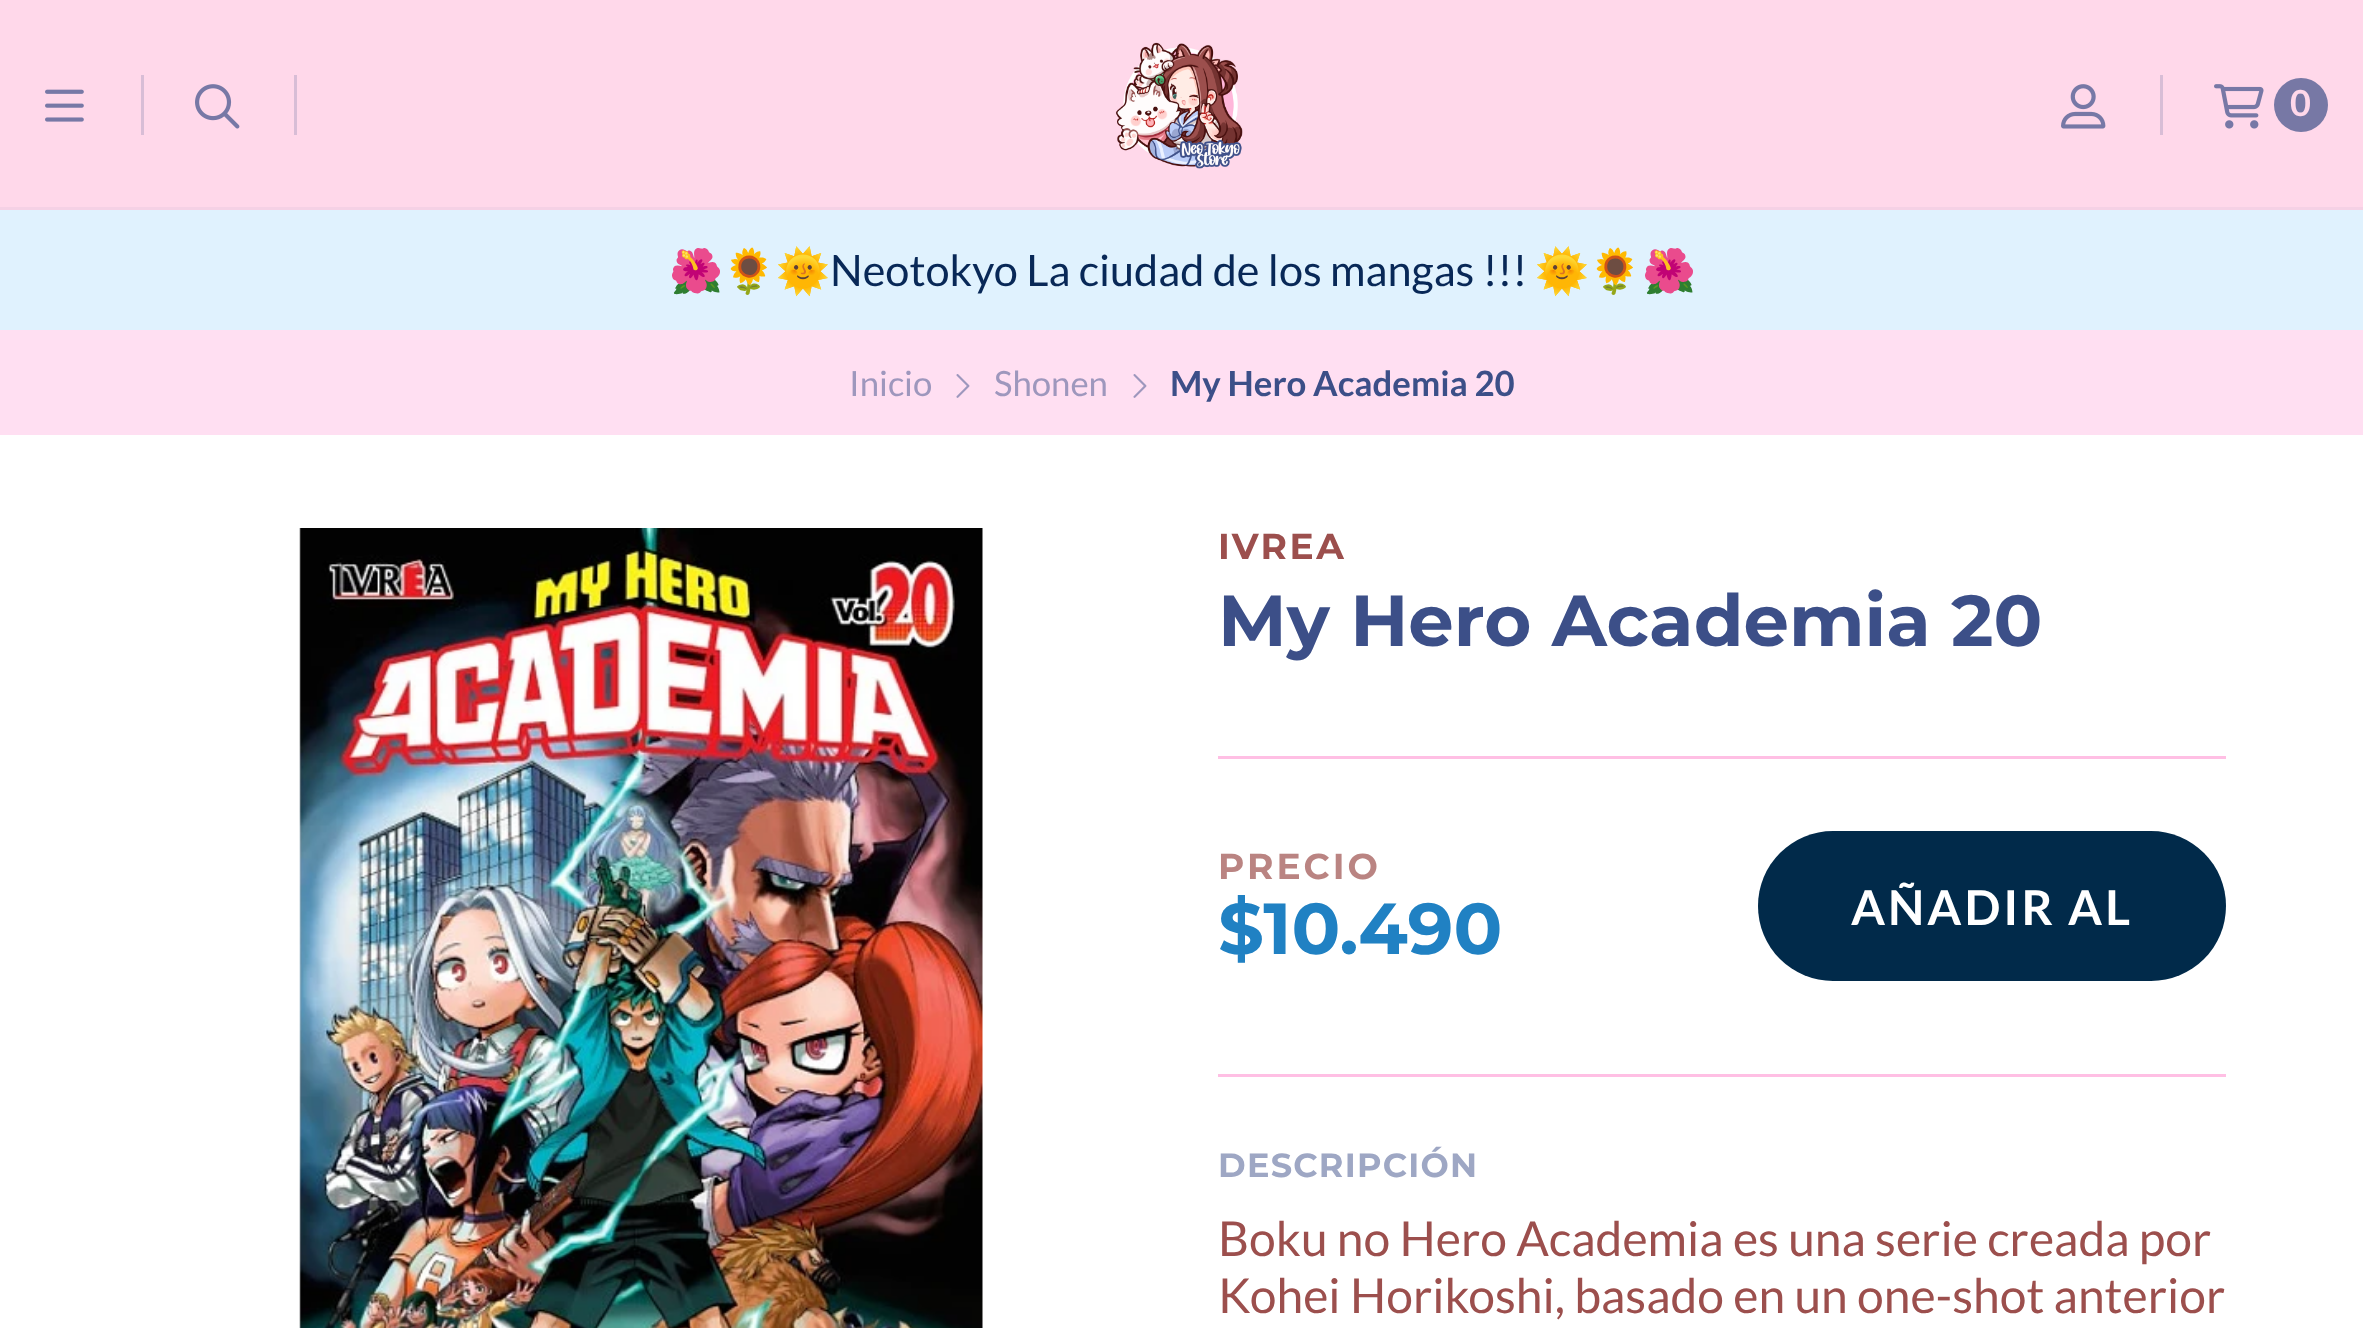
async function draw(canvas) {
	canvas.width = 2363;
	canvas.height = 1328;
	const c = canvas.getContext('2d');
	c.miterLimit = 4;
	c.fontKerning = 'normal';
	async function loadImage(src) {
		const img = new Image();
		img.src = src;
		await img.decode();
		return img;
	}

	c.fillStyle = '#fff';
	c.fillRect(0, 0, 2363, 1328);
	for (const [x, y, w, h, color] of [
		[0, 0, 2363, 207, '#ffd8ea'],
		[0, 207, 2363, 3, '#f5d1e5'],
		[141, 75, 3, 60, '#d8bdd6'],
	]) {
		c.fillStyle = color;
		c.fillRect(x, y, w, h);
	}
	c.drawImage(await loadImage('img1.png'), 45, 89, 39, 33);
	c.fillRect(294, 75, 3, 60);
	c.drawImage(await loadImage('img2.png'), 195, 84, 45, 45);
	c.drawImage(await loadImage('img3.png'), 1115, 42, 128, 127);
	c.fillRect(2160, 75, 3, 60);
	c.drawImage(await loadImage('img4.png'), 2061, 84, 45, 45);
	c.drawImage(await loadImage('img5.png'), 2214, 84, 50, 45);
	c.fillStyle = '#7778a5';
	c.beginPath();
	c.arc(2301, 105, 27, 0, 2 * Math.PI);
	c.fill();
	c.font = 'bold 36px Lato';
	c.fillStyle = '#ffd8ea';
	c.fillText('0', 2290, 116);
	c.fillStyle = '#e0f2fe';
	c.fillRect(0, 210, 2363, 120);
	c.font = '43.25px Noto Color Emoji';
	c.fillStyle = '#082857';
	c.fillText('🌺🌻🌞', 669, 286);
	c.font = '43.25px Lato';
	c.fillText('Neotokyo La ciudad de los mangas !!!', 830, 286);
	c.font = '43.25px Noto Color Emoji';
	c.fillText('🌞🌻🌺', 1535, 286);
	c.fillStyle = '#ffdff2';
	c.fillRect(0, 330, 2363, 105);
	c.font = '34.75px Lato';
	c.fillStyle = '#9e97bd';
	c.fillText('Inicio', 849, 396);
	c.drawImage(await loadImage('img6.png'), 956, 374, 14, 24);
	c.fillText('Shonen', 994, 396);
	c.drawImage(await loadImage('img6.png'), 1133, 374, 14, 24);
	c.font = 'bold 34.75px Lato';
	c.fillStyle = '#3c4f88';
	c.fillText('My Hero Academia 20', 1170, 396);
	c.drawImage(await loadImage('img7.png'), 299, 528, 684, 800);
	c.letterSpacing = '2.5px';
	c.font = 'bold 36px Montserrat';
	c.fillStyle = '#9c4f4d';
	c.fillText('IVREA', 1218, 559);
	c.letterSpacing = '0px';
	c.font = 'bold 72px Montserrat';
	c.fillStyle = '#3c4f88';
	c.fillText('My Hero Academia 20', 1218, 646);
	c.fillStyle = '#ffbfe4';
	c.fillRect(1218, 756, 1008, 3);
	c.letterSpacing = '3px';
	c.font = 'bold 36px Montserrat';
	c.fillStyle = '#ba8482';
	c.fillText('PRECIO', 1218, 879);
	c.letterSpacing = '0px';
	c.font = 'bold 72px Montserrat';
	c.fillStyle = '#2081c3';
	c.fillText('$10.490', 1218, 954);
	c.fillStyle = '#012a4a';
	c.beginPath();
	c.roundRect(1758, 831, 468, 150, 75);
	c.fill();
	c.letterSpacing = '3px';
	c.font = 'bold 48px Lato';
	c.fillStyle = '#fff';
	c.fillText('AÑADIR AL', 1851, 925);
	c.fillStyle = '#ffbfe4';
	c.fillRect(1218, 1074, 1008, 3);
	c.letterSpacing = '1.25px';
	c.font = 'bold 33.5px Montserrat';
	c.fillStyle = '#9ea7c4';
	c.fillText('DESCRIPCIÓN', 1218, 1177);
	c.letterSpacing = '0px';
	c.font = '48px Lato';
	c.fillStyle = '#9c4f4d';
	c.fillText('Boku no Hero Academia es una serie creada por', 1218, 1256);
	c.fillText('Kohei Horikoshi, basado en un one-shot anterior', 1218, 1313);
}

draw(document.querySelector('canvas'));
